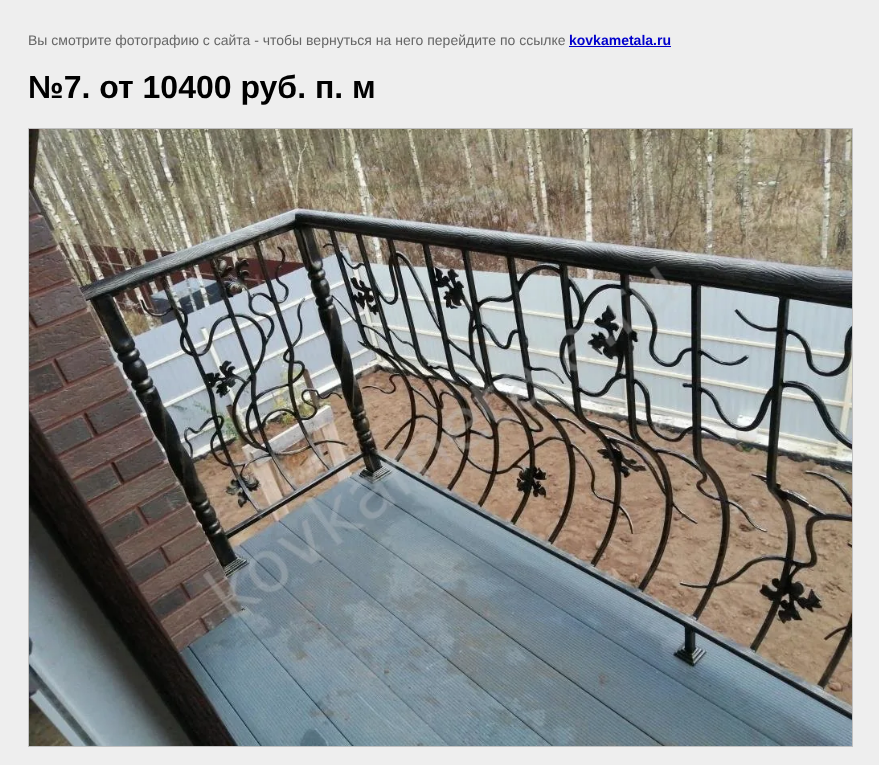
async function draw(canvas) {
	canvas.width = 879;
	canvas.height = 765;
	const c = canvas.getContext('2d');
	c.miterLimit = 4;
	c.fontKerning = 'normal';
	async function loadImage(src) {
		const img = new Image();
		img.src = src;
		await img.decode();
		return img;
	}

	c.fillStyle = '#eee';
	c.fillRect(0, 0, 879, 765);
	c.font = '14px Liberation Sans';
	c.fillStyle = '#666';
	c.fillText('Вы смотрите фотографию с сайта - чтобы вернуться на него перейдите по ссылке', 28, 45);
	c.font = 'bold 14px Liberation Sans';
	c.fillStyle = '#00c';
	c.fillText('kovkametala.ru', 569, 45);
	c.fillRect(569, 46, 102, 1);
	c.font = 'bold 32px Liberation Sans';
	c.fillStyle = '#000';
	c.fillText('№7. от 10400 руб. п. м', 28, 98);
	c.strokeStyle = '#c0c0c0';
	c.strokeRect(28.5, 128.5, 824, 618);
	c.drawImage(await loadImage('img1.png'), 29, 129, 823, 617);
}

draw(document.querySelector('canvas'));
